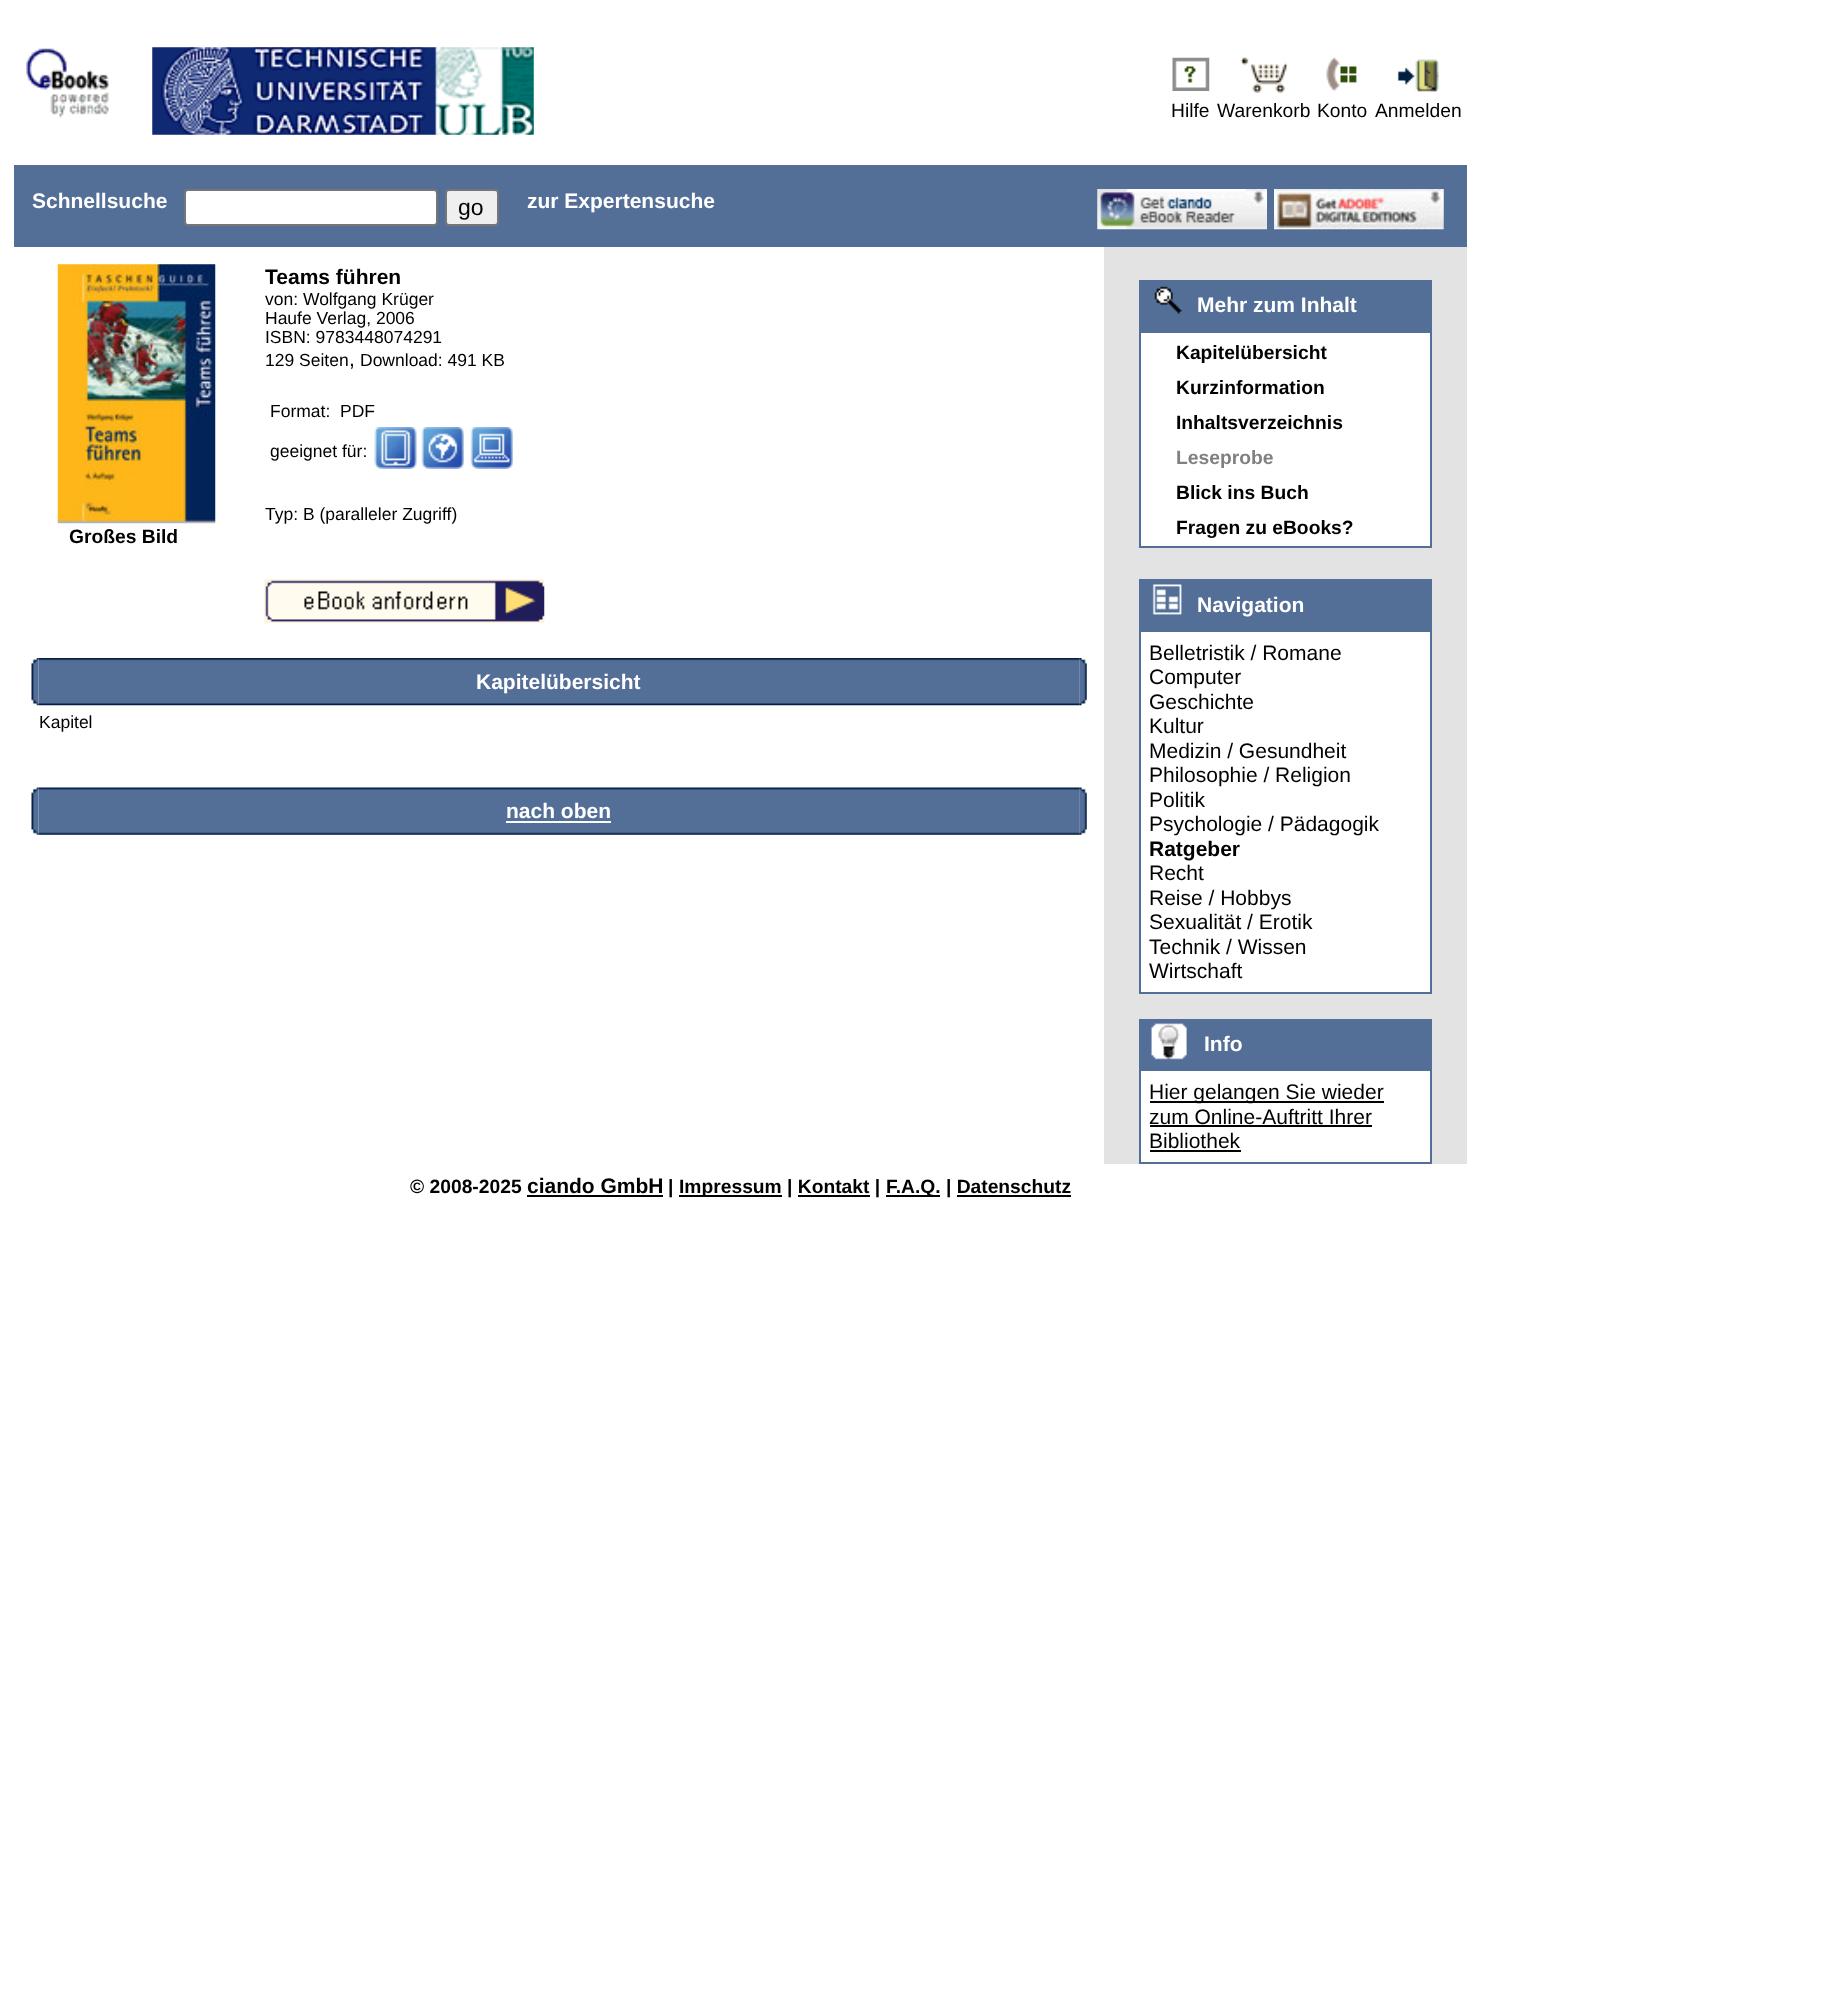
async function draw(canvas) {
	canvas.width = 1844;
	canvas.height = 2016;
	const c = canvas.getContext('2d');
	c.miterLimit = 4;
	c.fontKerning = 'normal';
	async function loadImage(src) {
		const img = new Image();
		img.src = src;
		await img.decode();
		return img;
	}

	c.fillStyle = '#fff';
	c.fillRect(0, 0, 1844, 2016);
	c.drawImage(await loadImage('img1.png'), 25, 48, 84, 70);
	c.drawImage(await loadImage('img2.png'), 152, 47, 382, 88);
	c.drawImage(await loadImage('img3.png'), 1172, 57, 38, 34);
	c.drawImage(await loadImage('img4.png'), 1240, 57, 48, 36);
	c.drawImage(await loadImage('img5.png'), 1326, 57, 31, 34);
	c.drawImage(await loadImage('img6.png'), 1397, 59, 42, 33);
	c.font = '19.25px Liberation Sans';
	c.fillStyle = '#000';
	for (const [text, x, y] of [
		['Hilfe', 1171, 117],
		['Warenkorb', 1217, 117],
		['Konto', 1317, 117],
		['Anmelden', 1375, 117],
	]) {
		c.fillText(text, x, y);
	}
	c.fillStyle = '#546f97';
	c.fillRect(14, 165, 1453, 82);
	c.font = 'bold 21px Liberation Sans';
	c.fillStyle = '#fff';
	c.fillText('Schnellsuche', 32, 208);
	c.beginPath();
	c.roundRect(185, 190, 252, 35, 3);
	c.fill();
	c.strokeStyle = '#767676';
	c.lineWidth = 2;
	c.stroke();
	c.fillStyle = '#efefef';
	c.beginPath();
	c.roundRect(446, 190, 52, 35, 3);
	c.fill();
	c.stroke();
	c.font = '23px Liberation Sans';
	c.fillStyle = '#000';
	c.fillText('go', 458, 215);
	c.font = 'bold 21px Liberation Sans';
	c.fillStyle = '#fff';
	c.fillText('zur Expertensuche', 527, 208);
	c.drawImage(await loadImage('img7.png'), 1097, 189, 170, 41);
	c.drawImage(await loadImage('img8.png'), 1274, 189, 170, 41);
	c.fillStyle = '#000';
	c.fillText('Teams führen', 265, 284);
	c.font = '17.5px Liberation Sans';
	for (const [text, x, y] of [
		['von: Wolfgang Krüger', 265, 305],
		['Haufe Verlag, 2006', 265, 324],
		['ISBN: 9783448074291', 265, 343],
		['129 Seiten', 265, 366],
	]) {
		c.fillText(text, x, y);
	}
	c.font = '21px Liberation Sans';
	c.fillText(',', 349, 366);
	c.font = '17.5px Liberation Sans';
	for (const [text, x, y] of [
		['Download: 491 KB', 360, 366],
		['Format:  PDF', 270, 417],
		['geeignet für:', 270, 457],
	]) {
		c.fillText(text, x, y);
	}
	c.drawImage(await loadImage('img9.png'), 374, 427, 43, 42);
	c.drawImage(await loadImage('img10.png'), 421, 427, 43, 42);
	c.drawImage(await loadImage('img11.png'), 470, 427, 43, 42);
	c.fillText('Typ: B (paralleler Zugriff)', 265, 520);
	c.drawImage(await loadImage('img12.png'), 57, 264, 159, 260);
	c.font = 'bold 19.25px Liberation Sans';
	c.fillText('Großes Bild', 69, 543);
	c.drawImage(await loadImage('img13.png'), 264, 579, 281, 44);
	c.drawImage(await loadImage('img15.png'), 38, 658, 1042, 48);
	c.drawImage(await loadImage('img14.png'), 31, 658, 8, 48);
	c.font = 'bold 21px Liberation Sans';
	c.fillStyle = '#fff';
	c.fillText('Kapitelübersicht', 476, 689);
	c.drawImage(await loadImage('img16.png'), 1079, 658, 8, 48);
	c.font = '17.5px Liberation Sans';
	c.fillStyle = '#000';
	c.fillText('Kapitel', 39, 728);
	c.fillStyle = '#e3e3e3';
	c.fillRect(39, 788, 1041, 47);
	c.drawImage(await loadImage('img18.png'), 38, 787, 1042, 48);
	c.drawImage(await loadImage('img17.png'), 31, 787, 8, 48);
	c.font = 'bold 21px Liberation Sans';
	c.fillStyle = '#fff';
	c.fillText('nach oben', 506, 818);
	c.fillRect(506, 821, 105, 2);
	c.drawImage(await loadImage('img19.png'), 1079, 787, 8, 48);
	c.fillStyle = '#e3e3e3';
	c.fillRect(1104, 247, 363, 917);
	c.fillStyle = '#546f97';
	c.fillRect(1139, 280, 293, 268);
	c.drawImage(await loadImage('img20.png'), 1154, 286, 28, 28);
	c.fillStyle = '#fff';
	c.fillText('Mehr zum Inhalt', 1197, 312);
	c.fillRect(1141, 333, 289, 213);
	c.font = 'bold 19.25px Liberation Sans';
	c.fillStyle = '#000';
	for (const [text, x, y] of [
		['Kapitelübersicht', 1176, 359],
		['Kurzinformation', 1176, 394],
		['Inhaltsverzeichnis', 1176, 429],
	]) {
		c.fillText(text, x, y);
	}
	c.fillStyle = '#808080';
	c.fillText('Leseprobe', 1176, 464);
	c.fillStyle = '#000';
	c.fillText('Blick ins Buch', 1176, 499);
	c.fillText('Fragen zu eBooks?', 1176, 534);
	c.fillStyle = '#546f97';
	c.fillRect(1139, 579, 293, 415);
	c.drawImage(await loadImage('img21.png'), 1152, 584, 30, 31);
	c.font = 'bold 21px Liberation Sans';
	c.fillStyle = '#fff';
	c.fillText('Navigation', 1197, 612);
	c.fillRect(1141, 632, 289, 360);
	c.font = '21px Liberation Sans';
	c.fillStyle = '#000';
	for (const [text, x, y] of [
		['Belletristik / Romane', 1149, 660],
		['Computer', 1149, 684],
		['Geschichte', 1149, 709],
		['Kultur', 1149, 733],
		['Medizin / Gesundheit', 1149, 758],
		['Philosophie / Religion', 1149, 782],
		['Politik', 1149, 807],
		['Psychologie / Pädagogik', 1149, 831],
	]) {
		c.fillText(text, x, y);
	}
	c.font = 'bold 21px Liberation Sans';
	c.fillText('Ratgeber', 1149, 856);
	c.font = '21px Liberation Sans';
	for (const [text, x, y] of [
		['Recht', 1149, 880],
		['Reise / Hobbys', 1149, 905],
		['Sexualität / Erotik', 1149, 929],
		['Technik / Wissen', 1149, 954],
		['Wirtschaft', 1149, 978],
	]) {
		c.fillText(text, x, y);
	}
	c.fillStyle = '#546f97';
	c.fillRect(1139, 1019, 293, 145);
	c.drawImage(await loadImage('img22.png'), 1151, 1023, 36, 37);
	c.font = 'bold 21px Liberation Sans';
	c.fillStyle = '#fff';
	c.fillText('Info', 1204, 1051);
	c.fillRect(1141, 1071, 289, 91);
	c.fillStyle = '#000';
	c.fillRect(1150, 1101, 234, 2);
	c.font = '21px Liberation Sans';
	c.fillText('Hier gelangen Sie wieder', 1149, 1099);
	c.fillText('zum Online-Auftritt Ihrer', 1149, 1124);
	c.fillRect(1150, 1125, 222, 2);
	c.fillText('Bibliothek', 1149, 1148);
	c.fillRect(1150, 1150, 91, 2);
	c.font = 'bold 19.25px Liberation Sans';
	c.fillText('© 2008-2025', 410, 1193);
	c.font = 'bold 21px Liberation Sans';
	c.fillText('ciando GmbH', 527, 1193);
	c.fillRect(527, 1195, 136, 2);
	c.font = 'bold 19.25px Liberation Sans';
	c.fillText('|', 668, 1193);
	c.fillRect(679, 1195, 103, 2);
	c.fillText('Impressum | Kontakt |', 679, 1193);
	c.fillRect(798, 1195, 72, 2);
	c.fillRect(886, 1195, 54, 2);
	c.fillText('F.A.Q. | Datenschutz', 886, 1193);
	c.fillRect(957, 1195, 114, 2);
}

draw(document.querySelector('canvas'));
